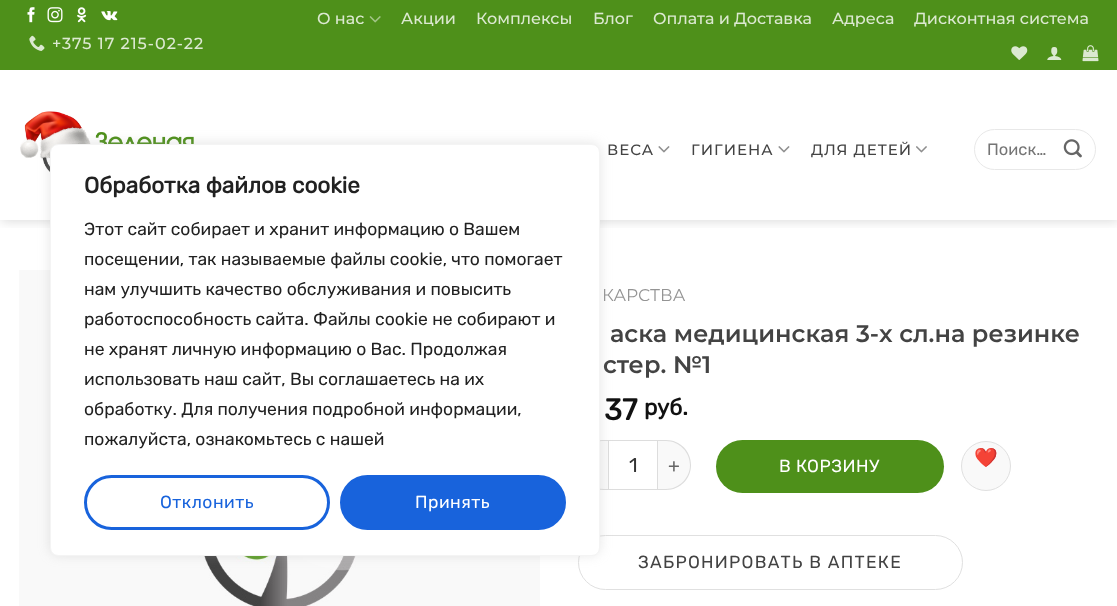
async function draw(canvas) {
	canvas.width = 1117;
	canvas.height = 606;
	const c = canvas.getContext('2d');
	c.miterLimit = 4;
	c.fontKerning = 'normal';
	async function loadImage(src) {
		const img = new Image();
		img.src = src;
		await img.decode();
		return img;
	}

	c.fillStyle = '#fff';
	c.fillRect(0, 0, 1117, 606);
	c.save();
	c.beginPath();
	c.rect(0, 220, 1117, 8);
	c.clip();
	c.fillStyle = '#00000026';
	c.filter = 'blur(6px)';
	c.beginPath();
	c.rect(1, 1, 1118, 220);
	c.fill();
	c.filter = 'none';
	c.restore();
	c.fillStyle = '#4e901a';
	c.fillRect(0, 0, 1117, 70);
	c.font = '500 16px Montserrat';
	c.fillStyle = '#dce9d1';
	c.fillText('О нас', 317, 24);
	c.drawImage(await loadImage('img1.png'), 369, 16, 12, 7);
	for (const [text, x, y] of [
		['Акции', 401, 24],
		['Комплексы', 476, 24],
		['Блог', 593, 24],
		['Оплата и Доставка', 653, 24],
		['Адреса', 832, 24],
		['Дисконтная система', 914, 24],
	]) {
		c.fillText(text, x, y);
	}
	c.drawImage(await loadImage('img2.png'), 1011, 46, 17, 14);
	c.drawImage(await loadImage('img3.png'), 1047, 47, 15, 13);
	c.drawImage(await loadImage('img4.png'), 1082, 45, 17, 17);
	c.drawImage(await loadImage('img5.png'), 27, 7, 8, 16);
	c.drawImage(await loadImage('img6.png'), 47, 7, 16, 16);
	c.drawImage(await loadImage('img7.png'), 77, 7, 10, 16);
	c.drawImage(await loadImage('img8.png'), 101, 11, 17, 10);
	c.drawImage(await loadImage('img9.png'), 29, 35, 16, 16);
	c.letterSpacing = '1px';
	c.fillText('+375 17 215-02-22', 52, 49);
	c.drawImage(await loadImage('img10.png'), 20, 111, 174, 61);
	c.font = '500 15px Montserrat';
	c.fillStyle = '#434343';
	c.fillText('ВЕСА', 607, 155);
	c.drawImage(await loadImage('img11.png'), 658, 146, 12, 7);
	c.fillText('ГИГИЕНА', 691, 155);
	c.drawImage(await loadImage('img11.png'), 778, 146, 12, 7);
	c.fillText('ДЛЯ ДЕТЕЙ', 811, 155);
	c.drawImage(await loadImage('img12.png'), 916, 146, 11, 7);
	c.beginPath();
	c.roundRect(974.5, 129.5, 121, 40, 20);
	c.strokeStyle = '#e8e8e8';
	c.stroke();
	c.letterSpacing = '0px';
	c.font = '300 16.5px Rubik';
	c.fillStyle = '#757575';
	c.fillText('Поиск…', 987, 155);
	c.drawImage(await loadImage('img13.png'), 1063, 139, 19, 19);
	c.drawImage(await loadImage('img14.png'), 19, 270, 521, 336);
	c.font = '17px Montserrat';
	c.fillStyle = '#949494';
	c.fillText('КАРСТВА', 602, 301);
	c.font = '600 24px Montserrat';
	c.fillStyle = '#434343';
	c.fillText('аска медицинская 3-х сл.на резинке', 610, 342);
	c.fillText('стер. №1', 603, 373);
	c.font = 'bold 30px Rubik';
	c.fillStyle = '#111';
	c.fillText('37', 604, 420);
	c.font = 'bold 22.5px Rubik';
	c.fillText('руб.', 644, 415);
	c.fillStyle = '#f9f9f9';
	c.beginPath();
	c.roundRect(578, 440, 30, 50, [25, 0, 0, 25]);
	c.fill();
	c.fillStyle = '#ddd';
	c.beginPath();
	c.moveTo(602, 440);
	c.lineTo(608, 440);
	c.lineTo(608, 490);
	c.bezierCurveTo(602, 490, 598, 490, 593, 488);
	c.bezierCurveTo(568, 478, 576, 440, 602, 440);
	c.closePath();
	c.moveTo(602, 441);
	c.lineTo(608, 441);
	c.lineTo(608, 489);
	c.bezierCurveTo(603, 489, 598, 489, 593, 487);
	c.bezierCurveTo(570, 477, 577, 441, 602, 441);
	c.closePath();
	c.fill('evenodd');
	c.strokeStyle = '#ddd';
	c.strokeRect(608.5, 440.5, 49, 49);
	c.font = '300 20px Rubik';
	c.fillStyle = '#333';
	c.fillText('1', 629, 472);
	c.fillStyle = '#f9f9f9';
	c.beginPath();
	c.roundRect(658, 440, 33, 50, [0, 25, 25, 0]);
	c.fill();
	c.fillStyle = '#ddd';
	c.beginPath();
	c.moveTo(658, 440);
	c.lineTo(666, 440);
	c.bezierCurveTo(680, 440, 691, 451, 691, 465);
	c.bezierCurveTo(691, 479, 680, 490, 666, 490);
	c.lineTo(658, 490);
	c.closePath();
	c.moveTo(658, 441);
	c.lineTo(666, 441);
	c.bezierCurveTo(679, 441, 690, 452, 690, 465);
	c.bezierCurveTo(690, 478, 679, 489, 666, 489);
	c.lineTo(658, 489);
	c.closePath();
	c.fill('evenodd');
	c.letterSpacing = '1px';
	c.font = '300 19px Rubik';
	c.fillStyle = '#666';
	c.fillText('+', 668, 472);
	c.fillStyle = '#4e901a';
	c.beginPath();
	c.roundRect(716, 440, 228, 53, 26.5);
	c.fill();
	c.letterSpacing = '0.5px';
	c.font = '300 17.5px Rubik';
	c.fillStyle = '#fff';
	c.fillText('В КОРЗИНУ', 779, 472);
	c.fillStyle = '#f9f9f9';
	c.beginPath();
	c.arc(986, 466, 24.5, 0, 2 * Math.PI);
	c.fill();
	c.strokeStyle = '#e0e0e0';
	c.stroke();
	c.letterSpacing = '1px';
	c.font = '19px Noto Color Emoji';
	c.fillStyle = '#f2171b';
	c.fillText('❤️', 974, 464);
	c.beginPath();
	c.roundRect(578.5, 535.5, 384, 54, 27);
	c.stroke();
	c.letterSpacing = '1.25px';
	c.font = '300 17.5px Rubik';
	c.fillStyle = '#434343';
	c.fillText('ЗАБРОНИРОВАТЬ В АПТЕКЕ', 638, 568);
	c.fillStyle = '#acabab4d';
	c.filter = 'blur(6px)';
	c.beginPath();
	c.roundRect(50, 143, 550, 412, 8);
	c.fill();
	c.filter = 'none';
	c.fillStyle = '#fff';
	c.beginPath();
	c.roundRect(50.5, 144.5, 549, 411, 7.5);
	c.fill();
	c.strokeStyle = '#f4f4f4';
	c.stroke();
	c.letterSpacing = '0px';
	c.font = 'bold 22.5px Rubik';
	c.fillStyle = '#212121';
	c.fillText('Обработка файлов cookie', 84, 193);
	c.font = '300 17.5px Rubik';
	for (const [text, x, y] of [
		['Этот сайт собирает и хранит информацию о Вашем', 84, 235],
		['посещении, так называемые файлы cookie, что помогает', 84, 265],
		['нам улучшить качество обслуживания и повысить', 84, 295],
		['работоспособность сайта. Файлы cookie не собирают и', 84, 325],
		['не хранят личную информацию о Вас. Продолжая', 84, 355],
		['использовать наш сайт, Вы соглашаетесь на их', 84, 385],
		['обработку. Для получения подробной информации,', 84, 415],
		['пожалуйста, ознакомьтесь с нашей', 84, 445],
	]) {
		c.fillText(text, x, y);
	}
	c.beginPath();
	c.roundRect(85.5, 476.5, 243, 52, 26);
	c.strokeStyle = '#1863dc';
	c.lineWidth = 3;
	c.stroke();
	c.letterSpacing = '0.5px';
	c.fillStyle = '#1863dc';
	c.fillText('Отклонить', 160, 508);
	c.beginPath();
	c.roundRect(341.5, 476.5, 223, 52, 26);
	c.fill();
	c.stroke();
	c.fillStyle = '#fff';
	c.fillText('Принять', 415, 508);
}

draw(document.querySelector('canvas'));
